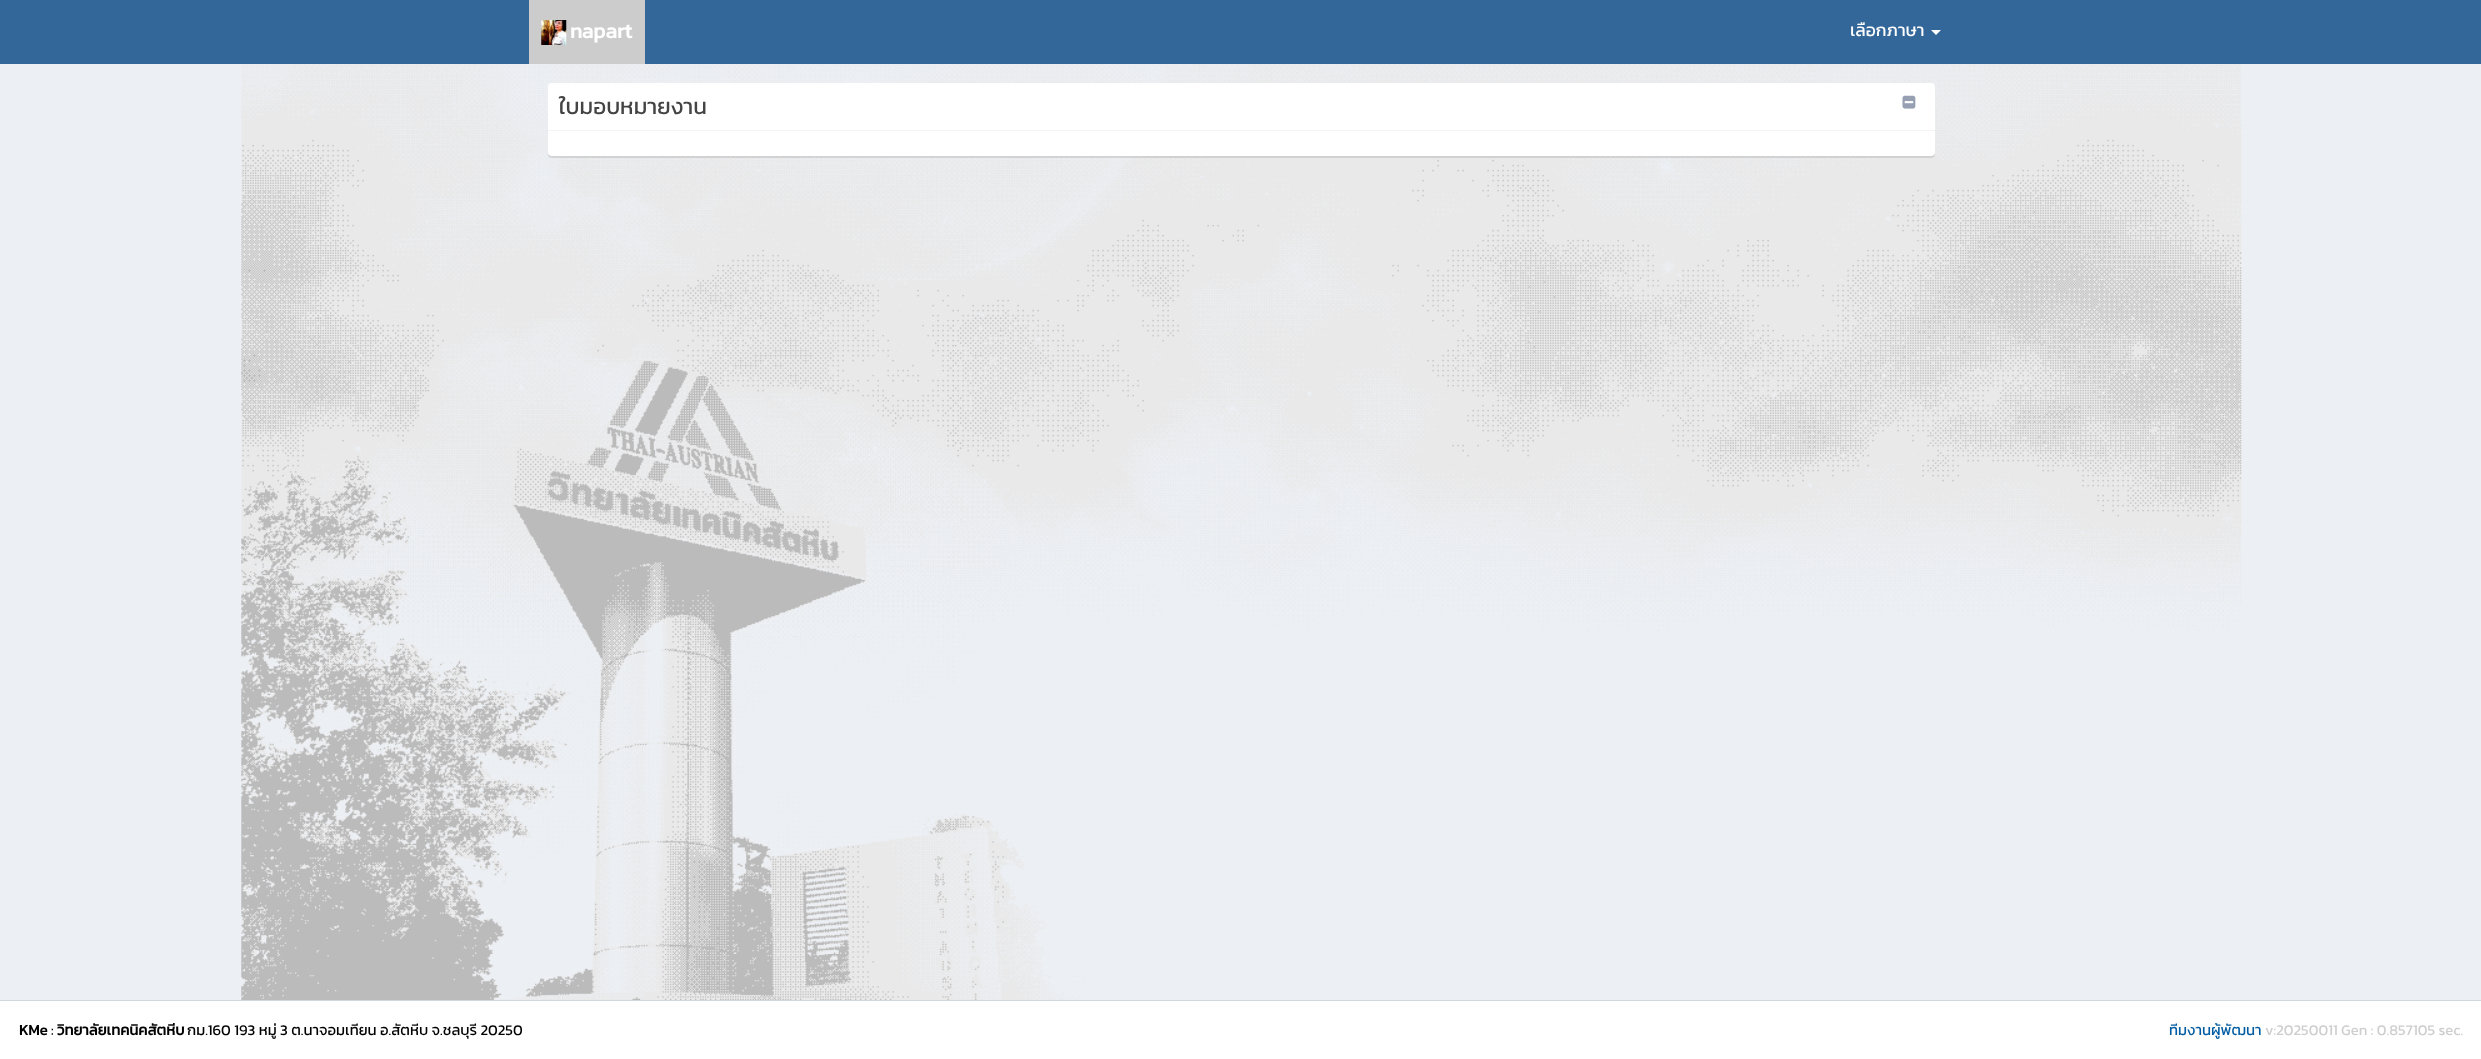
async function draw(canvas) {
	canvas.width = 2481;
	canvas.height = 1059;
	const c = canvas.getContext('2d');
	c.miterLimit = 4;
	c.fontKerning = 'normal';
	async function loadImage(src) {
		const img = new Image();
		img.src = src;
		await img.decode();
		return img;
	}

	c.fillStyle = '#ecf0f5';
	c.fillRect(0, 0, 2481, 1059);
	c.fillStyle = '#369';
	c.fillRect(0, 0, 2481, 64);
	c.fillStyle = '#ccc';
	c.fillRect(529, 0, 116, 64);
	c.drawImage(await loadImage('img1.png'), 541, 20, 26, 25);
	c.font = 'bold 21px Kanit';
	c.fillStyle = '#fff';
	c.fillText('napart', 570, 38);
	c.font = '17.5px Kanit';
	c.fillText('เลือกภาษา', 1850, 36);
	c.beginPath();
	c.moveTo(1931, 30);
	c.lineTo(1941, 30);
	c.lineTo(1936, 35);
	c.closePath();
	c.fill();
	c.drawImage(await loadImage('img2.png'), 241, 64, 2001, 936);
	c.fillStyle = '#0000001a';
	c.filter = 'blur(0.5px)';
	c.beginPath();
	c.roundRect(548, 84, 1387, 74, 4);
	c.fill();
	c.filter = 'none';
	c.fillStyle = '#fff';
	c.beginPath();
	c.roundRect(548, 83, 1387, 73, 4);
	c.fill();
	c.fillStyle = '#f4f4f4';
	c.fillRect(548, 130, 1387, 1);
	c.font = '22.5px Kanit';
	c.fillStyle = '#444';
	c.fillText('ใบมอบหมายงาน', 559, 114);
	c.drawImage(await loadImage('img3.png'), 1902, 95, 14, 14);
	c.fillStyle = '#fff';
	c.fillRect(0, 1001, 2481, 58);
	c.fillStyle = '#d2d6de';
	c.fillRect(0, 1000, 2481, 1);
	c.font = 'bold 14.9px Kanit';
	c.fillStyle = '#000';
	c.fillText('KMe', 19, 1035);
	c.font = '14.9px Kanit';
	c.fillText(':', 51, 1035);
	c.font = 'bold 14.9px Kanit';
	c.fillText('วิทยาลัยเทคนิคสัตหีบ', 57, 1035);
	c.font = '14.9px Kanit';
	c.fillText('กม.160 193 หมู่ 3 ต.นาจอมเทียน อ.สัตหีบ จ.ชลบุรี 20250', 187, 1035);
	c.fillStyle = '#005ca2';
	c.fillText('ทีมงานผู้พัฒนา', 2169, 1035);
	c.fillStyle = '#cecece';
	c.fillText('v:20250011 Gen : 0.857105 sec.', 2265, 1035);
}

draw(document.querySelector('canvas'));
